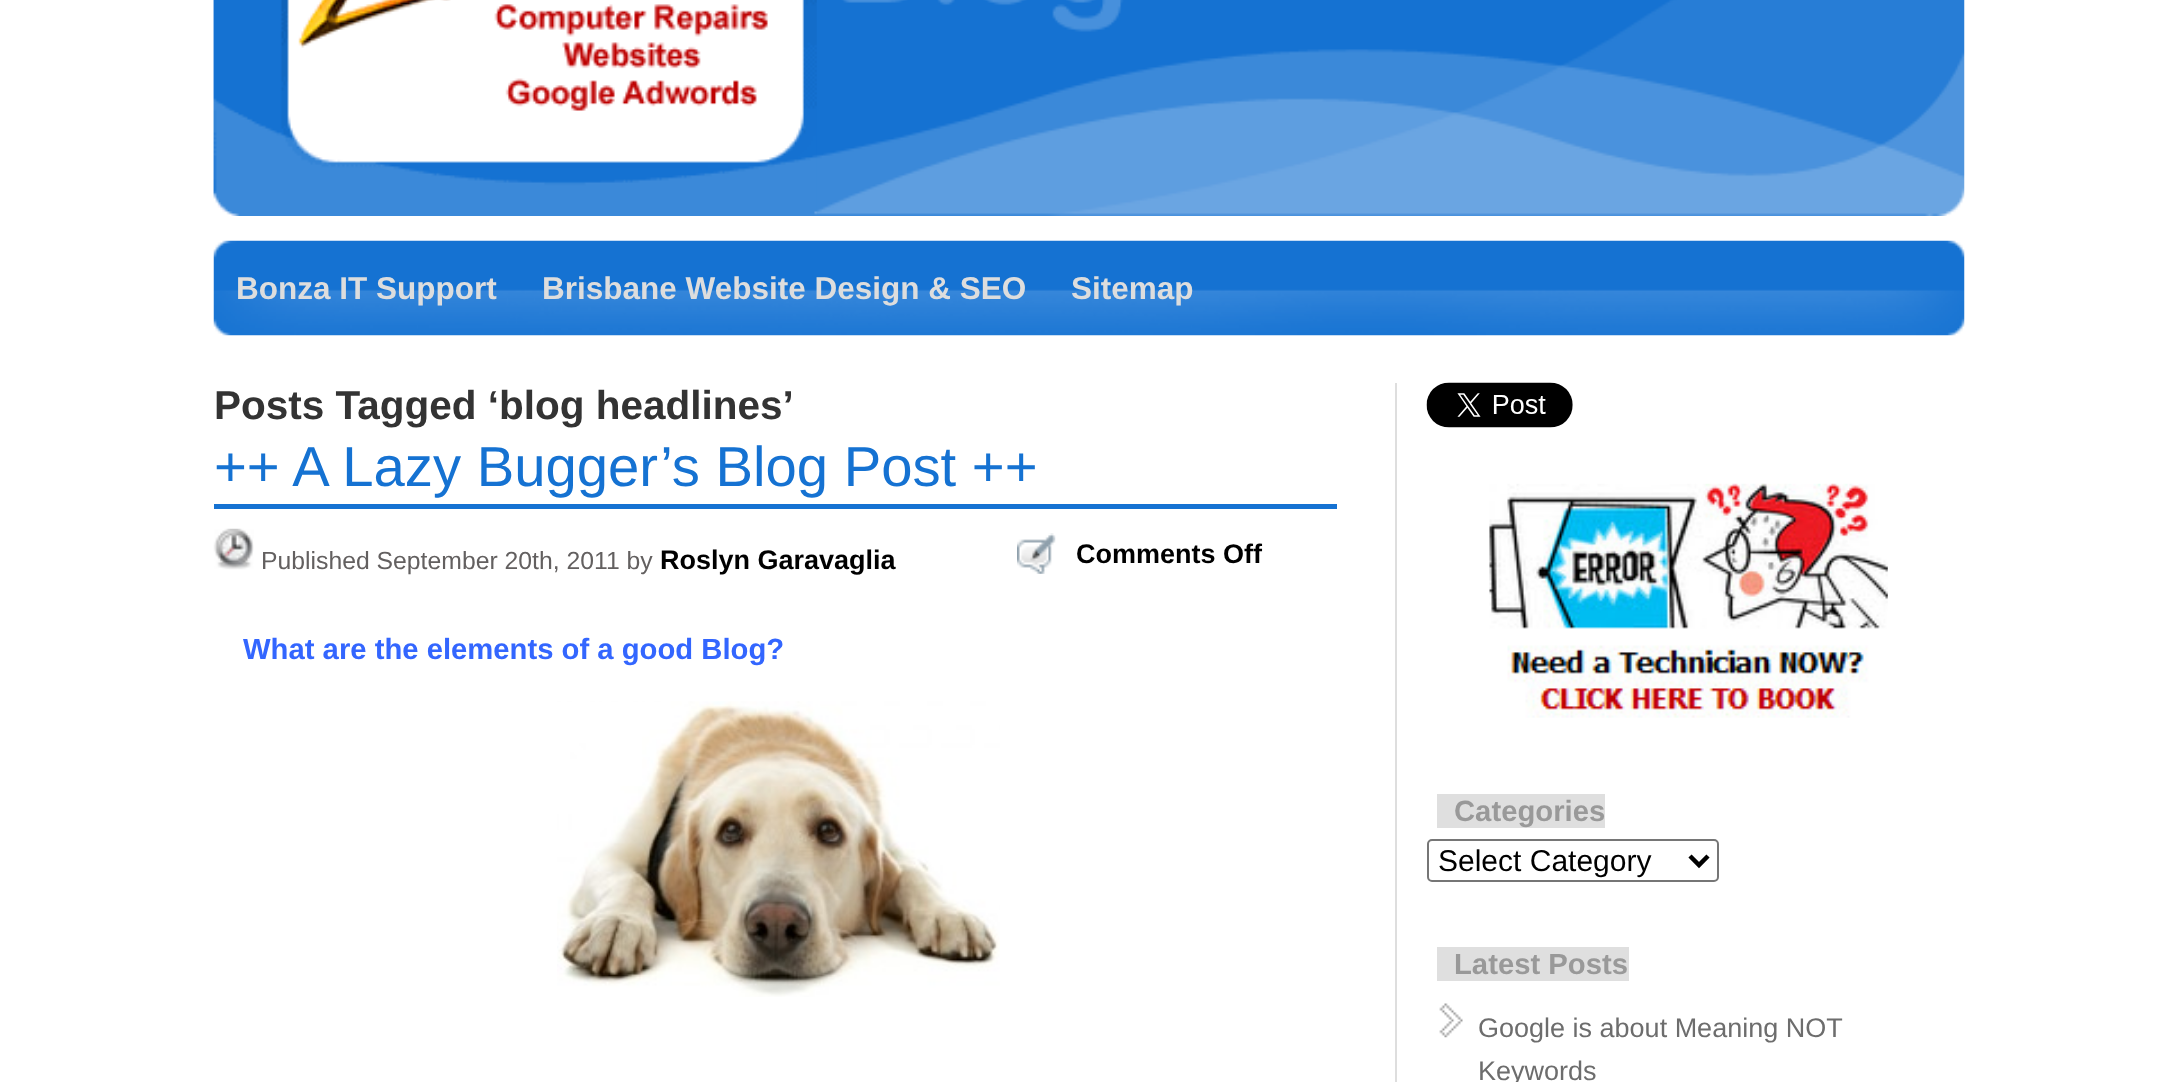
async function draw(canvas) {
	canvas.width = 2178;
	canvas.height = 1082;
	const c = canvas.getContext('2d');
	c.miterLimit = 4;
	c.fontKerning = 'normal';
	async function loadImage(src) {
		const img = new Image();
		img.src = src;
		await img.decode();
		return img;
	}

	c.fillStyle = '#fff';
	c.fillRect(0, 0, 2178, 1082);
	c.drawImage(await loadImage('img1.png'), 213, 0, 1752, 216);
	c.drawImage(await loadImage('img2.png'), 213, 0, 604, 216);
	c.drawImage(await loadImage('img3.png'), 213, 240, 1752, 96);
	c.font = 'bold 31.5px Liberation Sans';
	c.fillStyle = '#ddd';
	for (const [text, x, y] of [
		['Bonza IT Support', 236, 299],
		['Brisbane Website Design & SEO', 542, 299],
		['Sitemap', 1071, 299],
	]) {
		c.fillText(text, x, y);
	}
	c.font = 'bold 40.5px Liberation Sans';
	c.fillStyle = '#333';
	c.fillText('Posts Tagged ‘blog headlines’', 214, 419);
	c.font = '56.25px Liberation Sans';
	c.fillStyle = '#1572d2';
	c.fillText('++ A Lazy Bugger’s Blog Post ++', 214, 486);
	c.fillRect(214, 504, 1123, 5);
	c.drawImage(await loadImage('img4.png'), 213, 528, 41, 42);
	c.font = '24.75px Liberation Sans';
	c.fillStyle = '#636060';
	c.fillText('Published September 20th, 2011 by', 261, 569);
	c.font = 'bold 27px Liberation Sans';
	c.fillStyle = '#000';
	c.fillText('Roslyn Garavaglia', 660, 569);
	c.drawImage(await loadImage('img5.png'), 1017, 533, 39, 41);
	c.fillText('Comments Off', 1076, 563);
	c.font = 'bold 29.25px Liberation Sans';
	c.fillStyle = '#36f';
	c.fillText('What are the elements of a good Blog?', 243, 659);
	c.drawImage(await loadImage('img6.png'), 557, 701, 443, 296);
	c.fillStyle = '#dedede';
	c.fillRect(1395, 383, 2, 699);
	c.drawImage(await loadImage('img7.png'), 1426, 382, 147, 46);
	c.drawImage(await loadImage('img8.png'), 1489, 483, 399, 235);
	c.fillStyle = '#dfdfdf';
	c.fillRect(1437, 794, 168, 34);
	c.fillStyle = '#999';
	c.fillText('Categories', 1454, 821);
	c.beginPath();
	c.roundRect(1428, 840, 290, 41, 4);
	c.strokeStyle = '#767676';
	c.lineWidth = 2;
	c.stroke();
	c.beginPath();
	c.moveTo(1690, 856);
	c.lineTo(1699, 865);
	c.lineTo(1708, 856);
	c.strokeStyle = '#000';
	c.lineWidth = 4.5;
	c.stroke();
	c.font = '30px Liberation Sans';
	c.fillStyle = '#000';
	c.fillText('Select Category', 1438, 871);
	c.fillStyle = '#dfdfdf';
	c.fillRect(1437, 947, 192, 34);
	c.font = 'bold 29.25px Liberation Sans';
	c.fillStyle = '#999';
	c.fillText('Latest Posts', 1454, 974);
	c.drawImage(await loadImage('img9.png'), 1439, 1003, 24, 35);
	c.font = '27px Liberation Sans';
	c.fillStyle = '#6d6d6d';
	c.fillText('Google is about Meaning NOT', 1478, 1037);
	c.fillText('Keywords', 1478, 1080);
}

draw(document.querySelector('canvas'));
